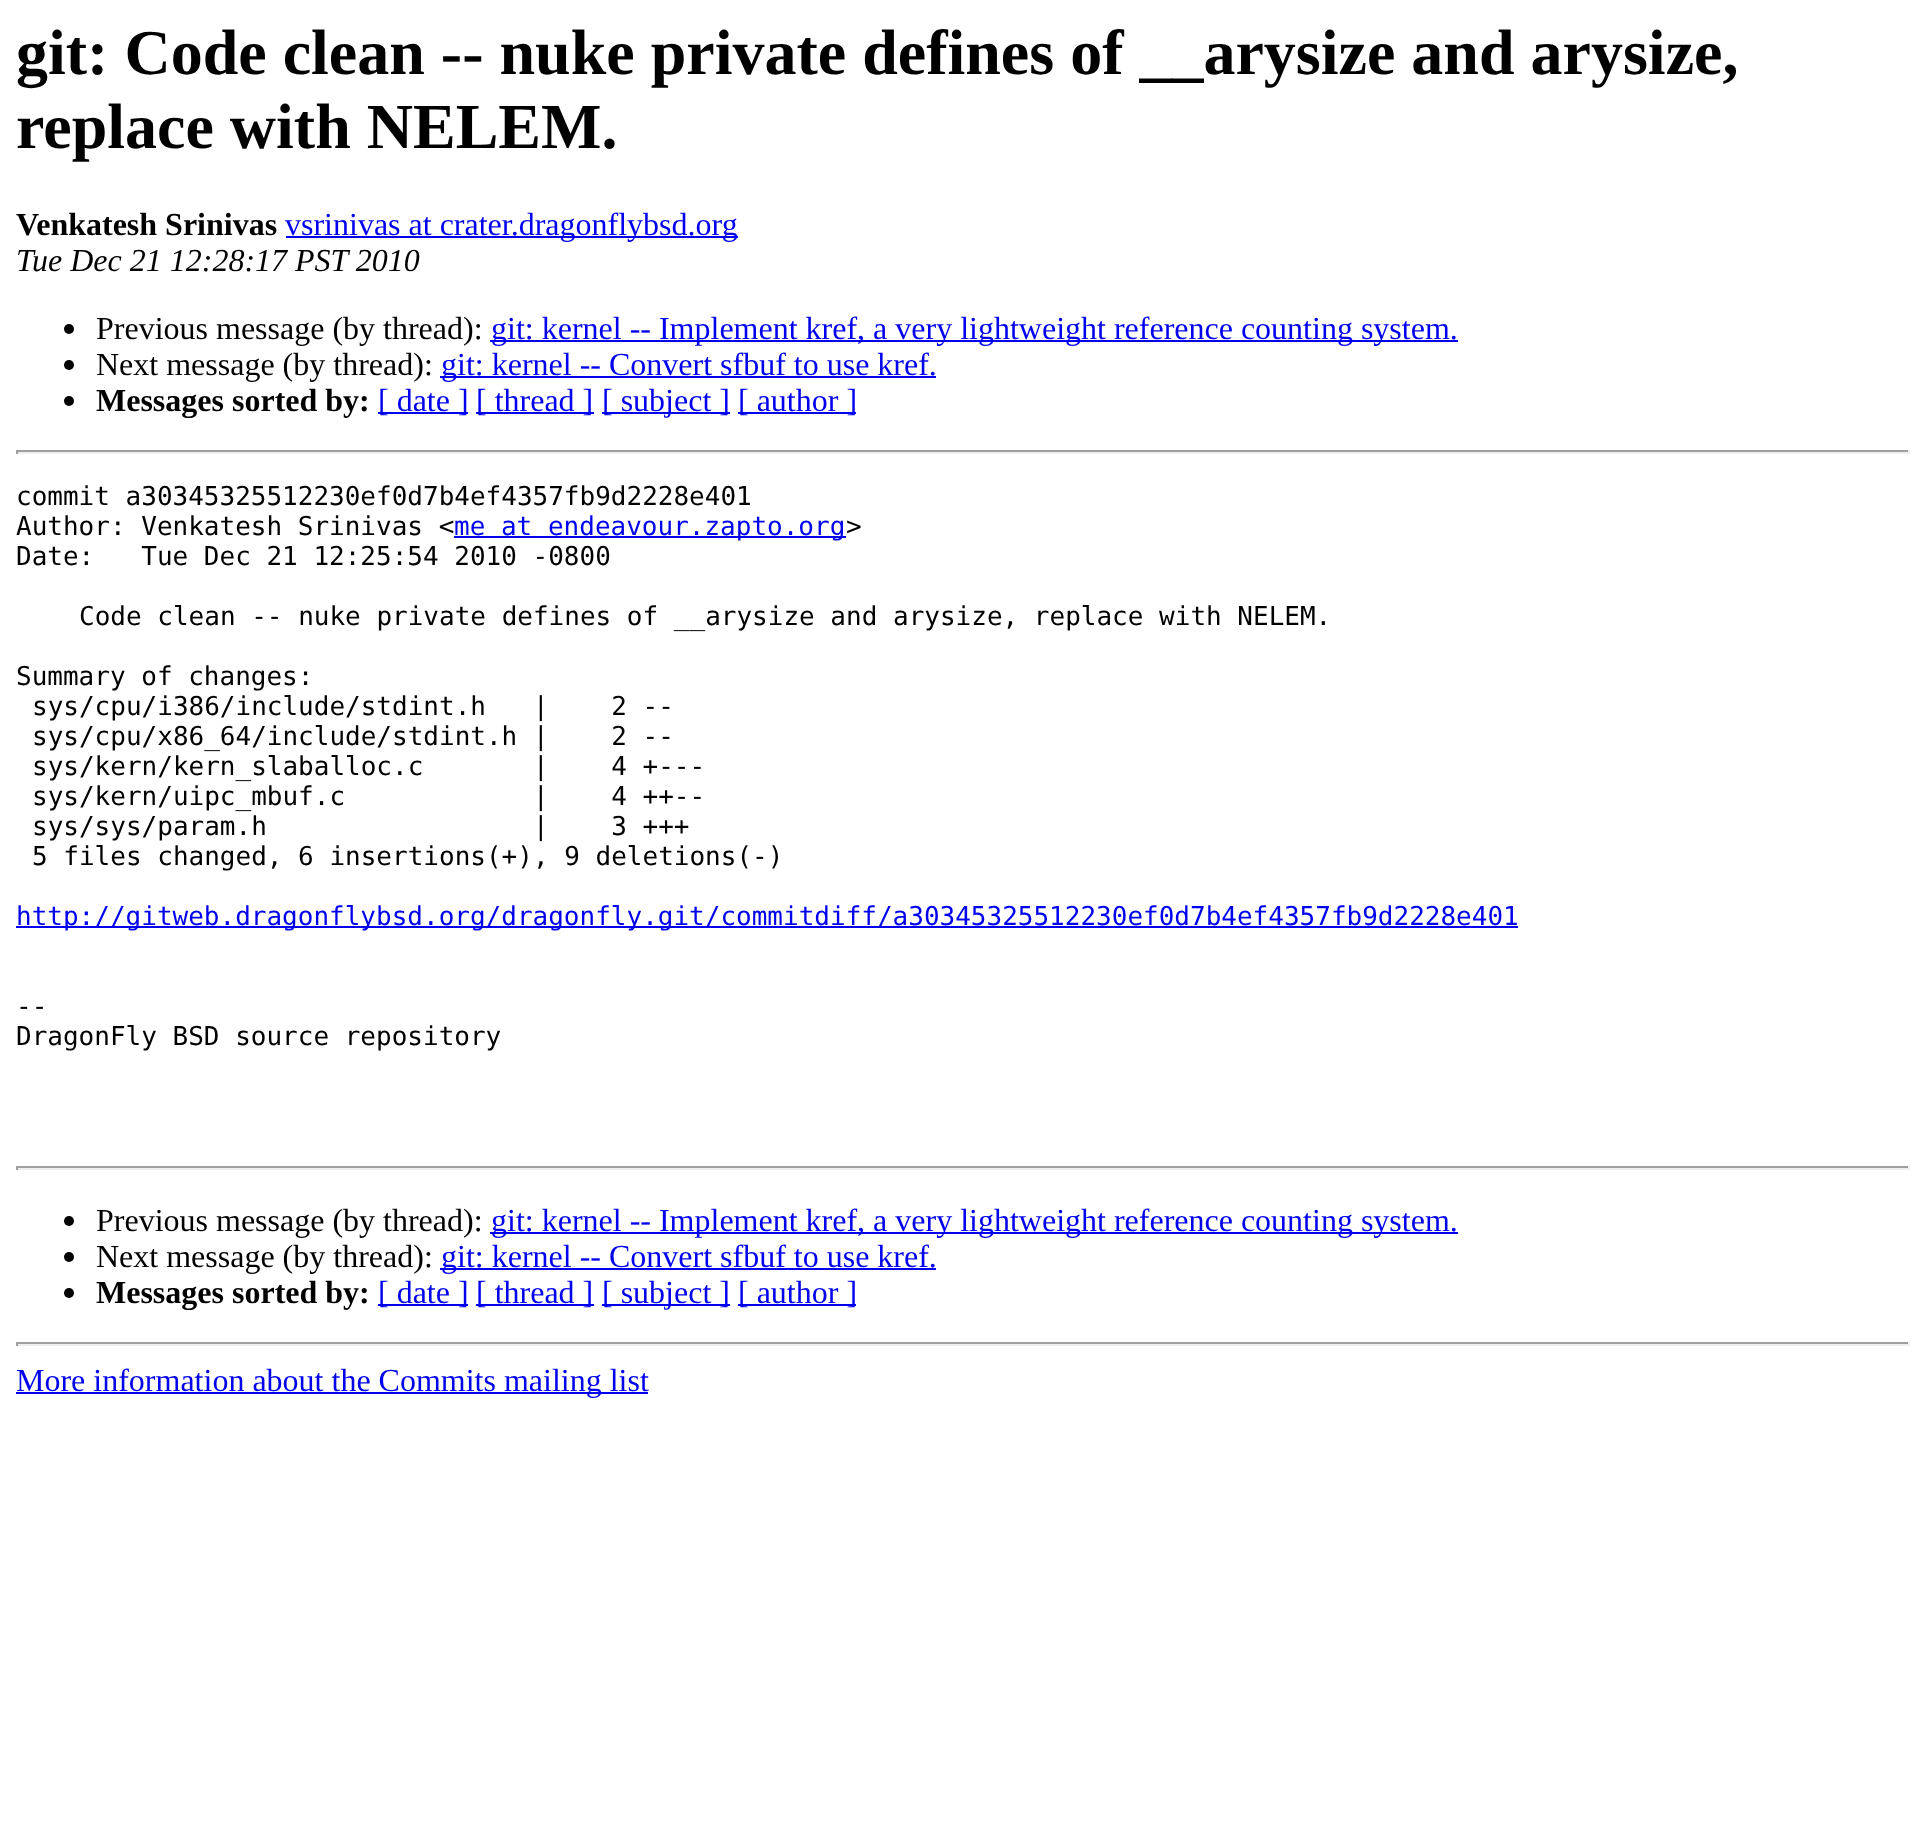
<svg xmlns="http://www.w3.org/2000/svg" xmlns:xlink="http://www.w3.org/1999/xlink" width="1925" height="1830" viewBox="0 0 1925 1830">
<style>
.cls-1{font:bold 64px Liberation Serif;fill:#000000}
.cls-2{font:bold 32px Liberation Serif;fill:#000000}
.cls-3{font:32px Liberation Serif;fill:#0000ee}
.cls-4{font:italic 32px Liberation Serif;fill:#000000}
.cls-5{font:32px Liberation Serif;fill:#000000}
.cls-6{font:26px DejaVu Sans Mono;fill:#000000}
.cls-7{font:26px DejaVu Sans Mono;fill:#0000ee}
</style>
<rect width="100%" height="100%" fill="#ffffff"/>
<rect fill="#0000ee" x="286" y="236" width="452" height="2"/>
<circle fill="#000000" cx="69" cy="329" r="5"/>
<rect fill="#0000ee" x="490" y="340" width="968" height="2"/>
<circle fill="#000000" cx="69" cy="365" r="5"/>
<rect fill="#0000ee" x="440" y="376" width="496" height="2"/>
<circle fill="#000000" cx="69" cy="401" r="5"/>
<rect fill="#0000ee" x="378" y="412" width="90" height="2"/>
<rect fill="#0000ee" x="476" y="412" width="118" height="2"/>
<rect fill="#0000ee" x="602" y="412" width="128" height="2"/>
<rect fill="#0000ee" x="738" y="412" width="118" height="2"/>
<rect fill="#9f9f9f" x="16" y="450" width="1894" height="2"/>
<rect fill="#eeeeee" x="1908" y="450" width="2" height="4"/>
<rect fill="#eeeeee" x="16" y="452" width="1894" height="2"/>
<rect fill="#9f9f9f" x="16" y="450" width="2" height="4"/>
<rect fill="#0000ee" x="454" y="536" width="392" height="2"/>
<rect fill="#0000ee" x="16" y="926" width="1502" height="2"/>
<rect fill="#9f9f9f" x="16" y="1166" width="1894" height="2"/>
<rect fill="#eeeeee" x="1908" y="1166" width="2" height="4"/>
<rect fill="#eeeeee" x="16" y="1168" width="1894" height="2"/>
<rect fill="#9f9f9f" x="16" y="1166" width="2" height="4"/>
<circle fill="#000000" cx="69" cy="1221" r="5"/>
<rect fill="#0000ee" x="490" y="1232" width="968" height="2"/>
<circle fill="#000000" cx="69" cy="1257" r="5"/>
<rect fill="#0000ee" x="440" y="1268" width="496" height="2"/>
<circle fill="#000000" cx="69" cy="1293" r="5"/>
<rect fill="#0000ee" x="378" y="1304" width="90" height="2"/>
<rect fill="#0000ee" x="476" y="1304" width="118" height="2"/>
<rect fill="#0000ee" x="602" y="1304" width="128" height="2"/>
<rect fill="#0000ee" x="738" y="1304" width="118" height="2"/>
<rect fill="#9f9f9f" x="16" y="1342" width="1894" height="2"/>
<rect fill="#eeeeee" x="1908" y="1342" width="2" height="4"/>
<rect fill="#eeeeee" x="16" y="1344" width="1894" height="2"/>
<rect fill="#9f9f9f" x="16" y="1342" width="2" height="4"/>
<rect fill="#0000ee" x="16" y="1392" width="632" height="2"/>
<text class="cls-1"><tspan x="16" y="74">git: Code clean -- nuke private defines of __arysize and arysize,</tspan><tspan x="16" y="148">replace with NELEM.</tspan></text>
<text class="cls-2" x="16" y="235">Venkatesh Srinivas</text>
<text class="cls-3" x="285" y="235">vsrinivas at crater.dragonflybsd.org</text>
<text class="cls-4" x="16" y="271">Tue Dec 21 12:28:17 PST 2010</text>
<text class="cls-5" x="96" y="339">Previous message (by thread):</text>
<text class="cls-3" x="491" y="339">git: kernel -- Implement kref, a very lightweight reference counting system.</text>
<text class="cls-5" x="96" y="375">Next message (by thread):</text>
<text class="cls-3" x="441" y="375">git: kernel -- Convert sfbuf to use kref.</text>
<text class="cls-2" x="96" y="411">Messages sorted by:</text>
<text class="cls-3" x="378" y="411">[ date ]</text>
<text class="cls-3" x="476" y="411">[ thread ]</text>
<text class="cls-3" x="602" y="411">[ subject ]</text>
<text class="cls-3" x="738" y="411">[ author ]</text>
<text class="cls-6"><tspan x="16" y="505">commit a30345325512230ef0d7b4ef4357fb9d2228e401</tspan><tspan x="16" y="535">Author: Venkatesh Srinivas &lt;</tspan></text>
<text class="cls-7" x="454" y="535">me at endeavour.zapto.org</text>
<text class="cls-6" x="846" y="535">&gt;</text>
<text class="cls-6" xml:space="preserve" x="16" y="565">Date:   Tue Dec 21 12:25:54 2010 -0800</text>
<text class="cls-6" x="79" y="625">Code clean -- nuke private defines of __arysize and arysize, replace with NELEM.</text>
<text class="cls-6" x="16" y="685">Summary of changes:</text>
<text class="cls-6" xml:space="preserve"><tspan x="32" y="715">sys/cpu/i386/include/stdint.h   |    2 --</tspan><tspan x="32" y="745">sys/cpu/x86_64/include/stdint.h |    2 --</tspan><tspan x="32" y="775">sys/kern/kern_slaballoc.c       |    4 +---</tspan><tspan x="32" y="805">sys/kern/uipc_mbuf.c            |    4 ++--</tspan><tspan x="32" y="835">sys/sys/param.h                 |    3 +++</tspan><tspan x="32" y="865">5 files changed, 6 insertions(+), 9 deletions(-)</tspan></text>
<text class="cls-7" x="16" y="925">http://gitweb.dragonflybsd.org/dragonfly.git/commitdiff/a30345325512230ef0d7b4ef4357fb9d2228e401</text>
<text class="cls-6"><tspan x="16" y="1015">--</tspan><tspan x="16" y="1045">DragonFly BSD source repository</tspan></text>
<text class="cls-5" x="96" y="1231">Previous message (by thread):</text>
<text class="cls-3" x="491" y="1231">git: kernel -- Implement kref, a very lightweight reference counting system.</text>
<text class="cls-5" x="96" y="1267">Next message (by thread):</text>
<text class="cls-3" x="441" y="1267">git: kernel -- Convert sfbuf to use kref.</text>
<text class="cls-2" x="96" y="1303">Messages sorted by:</text>
<text class="cls-3" x="378" y="1303">[ date ]</text>
<text class="cls-3" x="476" y="1303">[ thread ]</text>
<text class="cls-3" x="602" y="1303">[ subject ]</text>
<text class="cls-3" x="738" y="1303">[ author ]</text>
<text class="cls-3" x="16" y="1391">More information about the Commits mailing list</text>
</svg>
